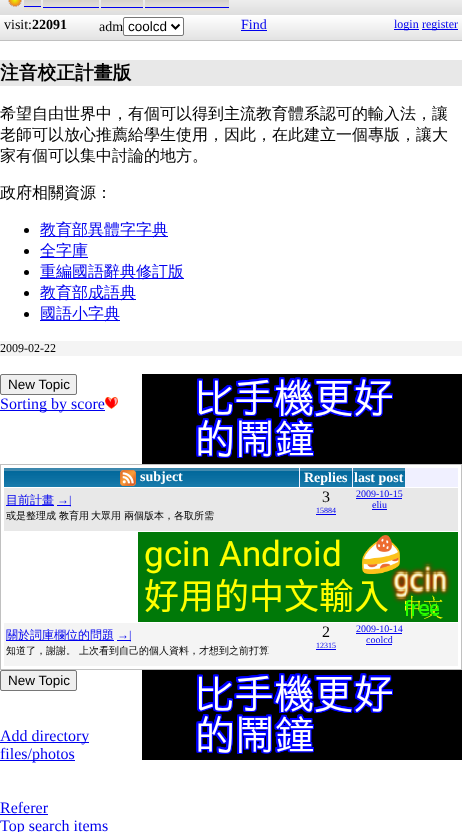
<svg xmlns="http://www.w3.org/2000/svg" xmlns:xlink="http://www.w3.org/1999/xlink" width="462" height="832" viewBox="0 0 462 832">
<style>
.cls-1{font:14px Liberation Serif;fill:#000000}
.cls-2{font:bold 14px Liberation Serif;fill:#000000}
.cls-3{font:13.5px Liberation Sans;fill:#000000}
.cls-4{font:14px Liberation Serif;fill:#0000ee}
.cls-5{font:12px Liberation Serif;fill:#0000ee}
.cls-6{font:bold 18.75px WenQuanYi Zen Hei;fill:#000000}
.cls-7{font:500 16px WenQuanYi Zen Hei;fill:#000000}
.cls-8{font:500 16px WenQuanYi Zen Hei;fill:#0000ee}
.cls-9{font:12px Liberation Serif;fill:#000000}
.cls-10{font:16px Liberation Serif;fill:#0000ee}
.cls-11{font:bold 14px Liberation Serif;fill:#ffffff}
.cls-12{font:500 12px WenQuanYi Zen Hei;fill:#0000ee}
.cls-13{font:500 10px WenQuanYi Zen Hei;fill:#000000}
.cls-14{font:16px Liberation Serif;fill:#000000}
.cls-15{font:8px Liberation Serif;fill:#0000ee}
.cls-16{font:10px Liberation Serif;fill:#0000ee}
</style>
<rect width="100%" height="100%" fill="#ffffff"/>
<image xlink:href="image0.png" x="0" y="0" width="462" height="40"/>
<rect fill="#c0c0c0" x="0" y="40" width="462" height="1"/>
<image xlink:href="image1.png" x="8" y="0" width="14" height="7"/>
<image xlink:href="image2.png" x="24" y="0" width="17" height="11"/>
<rect fill="#0000ee" x="24" y="6" width="17" height="1"/>
<image xlink:href="image3.png" x="43" y="0" width="56" height="11"/>
<rect fill="#0000ee" x="43" y="7" width="56" height="1"/>
<image xlink:href="image4.png" x="101" y="0" width="42" height="11"/>
<rect fill="#0000ee" x="101" y="7" width="42" height="1"/>
<image xlink:href="image5.png" x="145" y="0" width="84" height="11"/>
<rect fill="#0000ee" x="145" y="7" width="84" height="1"/>
<rect fill="#0000ee" x="241" y="30" width="26" height="1"/>
<rect fill="#0000ee" x="394" y="29" width="25" height="1"/>
<rect fill="#0000ee" x="422" y="29" width="36" height="1"/>
<rect fill="#e8e8e8" x="0" y="60" width="462" height="26"/>
<circle fill="#000000" cx="26.5" cy="230.5" r="2.5"/>
<rect fill="#0000ee" x="40" y="236" width="128" height="1"/>
<circle fill="#000000" cx="26.5" cy="251.5" r="2.5"/>
<rect fill="#0000ee" x="40" y="257" width="48" height="1"/>
<circle fill="#000000" cx="26.5" cy="272.5" r="2.5"/>
<rect fill="#0000ee" x="40" y="278" width="144" height="1"/>
<circle fill="#000000" cx="26.5" cy="293.5" r="2.5"/>
<rect fill="#0000ee" x="40" y="299" width="96" height="1"/>
<circle fill="#000000" cx="26.5" cy="314.5" r="2.5"/>
<rect fill="#0000ee" x="40" y="320" width="80" height="1"/>
<rect fill="#f4f4f4" x="0" y="341" width="462" height="15"/>
<rect fill="#efefef" stroke="#767676" x="0.5" y="374.5" width="76" height="20" rx="1.5"/>
<image xlink:href="image6.png" x="142" y="374" width="320" height="90"/>
<rect fill="#0000ee" x="0" y="410" width="105" height="1"/>
<image xlink:href="image7.png" x="105" y="397" width="13" height="12"/>
<rect fill="none" stroke="#c0c0c0" x="0.5" y="464.5" width="461" height="205"/>
<rect fill="#f0f0ff" x="299" y="468" width="159" height="19"/>
<image xlink:href="image8.png" x="4" y="468" width="295" height="19"/>
<image xlink:href="image9.png" x="120" y="470" width="16" height="16"/>
<image xlink:href="image10.png" x="300" y="468" width="52" height="19"/>
<image xlink:href="image10.png" x="353" y="468" width="52" height="19"/>
<rect fill="#e8e8e8" x="4" y="488" width="454" height="43"/>
<rect fill="#0000ee" x="6" y="505" width="48" height="1"/>
<rect fill="#0000ee" x="57" y="505" width="14" height="1"/>
<rect fill="#0000ee" x="316" y="514" width="20" height="1"/>
<rect fill="#0000ee" x="356" y="498" width="46" height="1"/>
<rect fill="#0000ee" x="372" y="509" width="15" height="1"/>
<image xlink:href="image11.png" x="138" y="532" width="320" height="90"/>
<rect fill="#f4f4f4" x="4" y="623" width="454" height="43"/>
<rect fill="#0000ee" x="6" y="640" width="108" height="1"/>
<rect fill="#0000ee" x="117" y="640" width="14" height="1"/>
<rect fill="#0000ee" x="316" y="649" width="20" height="1"/>
<rect fill="#0000ee" x="356" y="633" width="46" height="1"/>
<rect fill="#0000ee" x="366" y="644" width="26" height="1"/>
<rect fill="#efefef" stroke="#767676" x="0.5" y="670.5" width="76" height="20" rx="1.5"/>
<image xlink:href="image6.png" x="142" y="670" width="320" height="90"/>
<rect fill="#0000ee" x="0" y="742" width="89" height="1"/>
<rect fill="#0000ee" x="0" y="760" width="75" height="1"/>
<rect fill="#0000ee" x="0" y="814" width="48" height="1"/>
<text class="cls-1" x="4" y="29">visit:</text>
<text class="cls-2" x="32" y="29">22091</text>
<text class="cls-1" x="99" y="31">adm</text>
<rect fill="#ffffff" stroke="#767676" x="123.5" y="17.5" width="60" height="18" rx="1.5"/>
<path fill="none" stroke="#000000" stroke-width="2" d="M171.5 24.5L175.5 28.5L179.5 24.5"/>
<text class="cls-3" x="128" y="31">coolcd</text>
<text class="cls-4" x="241" y="29">Find</text>
<text class="cls-5" x="394" y="28">login</text>
<text class="cls-5" x="422" y="28">register</text>
<text class="cls-6" x="0" y="79">注音校正計畫版</text>
<text class="cls-7"><tspan x="0" y="119">希望自由世界中，有個可以得到主流教育體系認可的輸入法，讓</tspan><tspan x="0" y="140">老師可以放心推薦給學生使用，因此，在此建立一個專版，讓大</tspan><tspan x="0" y="161">家有個可以集中討論的地方。</tspan></text>
<text class="cls-7" x="0" y="198">政府相關資源：</text>
<text class="cls-8"><tspan x="40" y="235">教育部異體字字典</tspan><tspan x="40" y="256">全字庫</tspan><tspan x="40" y="277">重編國語辭典修訂版</tspan><tspan x="40" y="298">教育部成語典</tspan><tspan x="40" y="319">國語小字典</tspan></text>
<text class="cls-9" x="0" y="352">2009-02-22</text>
<text class="cls-3" x="8" y="389">New Topic</text>
<text class="cls-10" x="0" y="409">Sorting by score</text>
<text class="cls-11" x="140" y="481">subject</text>
<text class="cls-11" x="304" y="482">Replies</text>
<text class="cls-11" x="354" y="482">last post</text>
<text class="cls-12" x="6" y="504">目前計畫</text>
<text class="cls-5" x="57" y="504">→|</text>
<text class="cls-13" x="6" y="519">或是整理成</text>
<text class="cls-13" x="59" y="519">教育用</text>
<text class="cls-13" x="91" y="519">大眾用</text>
<text class="cls-13" x="124" y="519">兩個版本，各取所需</text>
<text class="cls-14" x="322" y="502">3</text>
<text class="cls-15" x="316" y="513">15884</text>
<text class="cls-16" x="356" y="497">2009-10-15</text>
<text class="cls-16" x="372" y="508">eliu</text>
<text class="cls-12" x="6" y="639">關於詞庫欄位的問題</text>
<text class="cls-5" x="117" y="639">→|</text>
<text class="cls-13" x="6" y="654">知道了，謝謝。</text>
<text class="cls-13" x="79" y="654">上次看到自己的個人資料，才想到之前打算</text>
<text class="cls-14" x="322" y="637">2</text>
<text class="cls-15" x="316" y="648">12315</text>
<text class="cls-16" x="356" y="632">2009-10-14</text>
<text class="cls-16" x="366" y="643">coolcd</text>
<text class="cls-3" x="8" y="685">New Topic</text>
<text class="cls-10"><tspan x="0" y="741">Add directory</tspan><tspan x="0" y="759">files/photos</tspan></text>
<text class="cls-10"><tspan x="0" y="813">Referer</tspan><tspan x="0" y="831">Top search items</tspan></text>
</svg>
